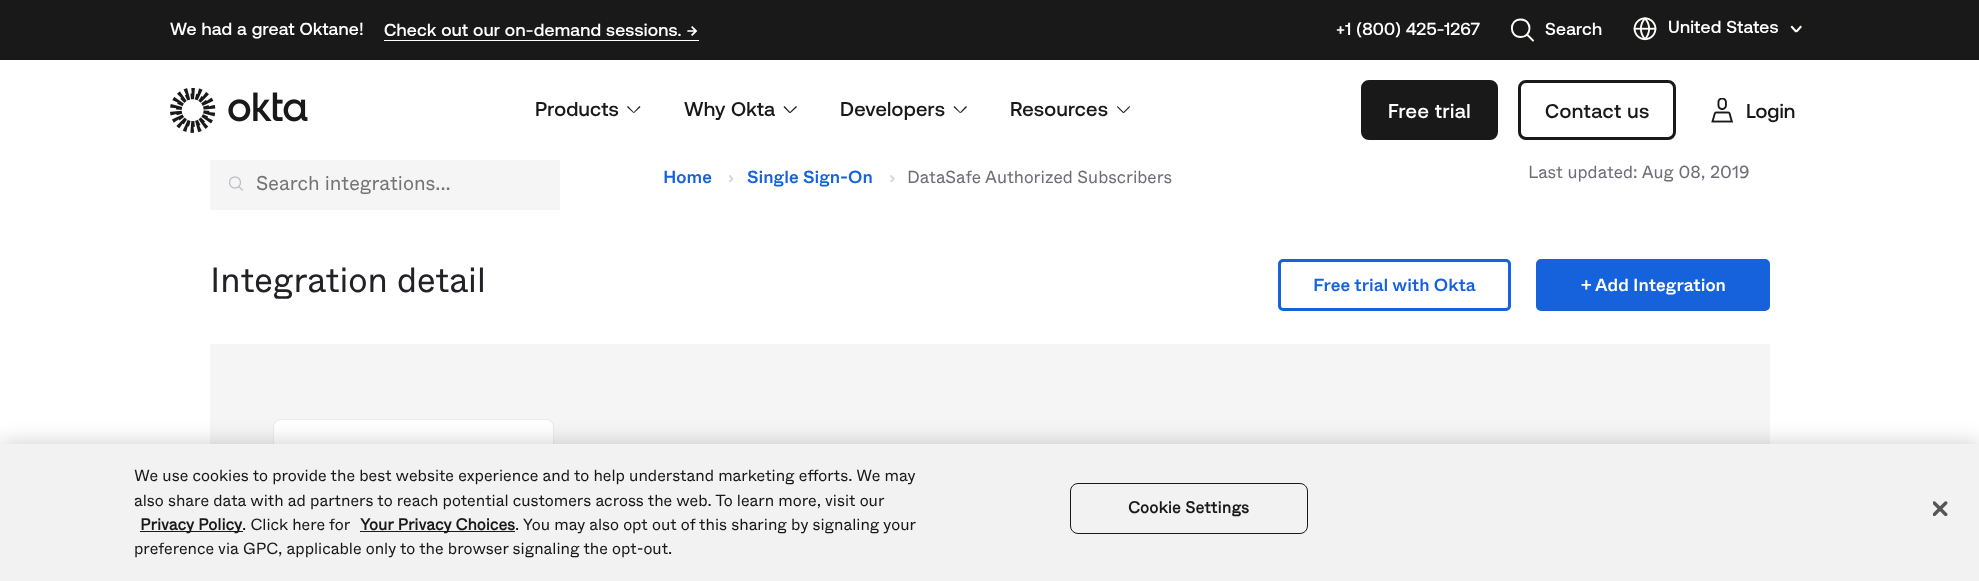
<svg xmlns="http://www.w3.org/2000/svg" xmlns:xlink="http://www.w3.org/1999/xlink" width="1979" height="581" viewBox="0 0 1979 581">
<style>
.cls-1{font:500 17.5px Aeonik;letter-spacing:0.25px;fill:#ffffff}
.cls-2{font:500 20px Aeonik;letter-spacing:0.25px;fill:#191919}
.cls-3{font:500 20px Aeonik;letter-spacing:0.5px;fill:#ffffff}
.cls-4{font:500 20px Aeonik;letter-spacing:0.5px;fill:#191919}
.cls-5{font:500 20px Aeonik;fill:#191919}
.cls-6{font:300 20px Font;fill:#757575}
.cls-7{font:500 17.5px Font;fill:#1662dd}
.cls-8{font:300 17.5px Font;fill:#6e6e78}
.cls-9{font:300 35px Font;fill:#212126}
.cls-10{font:500 17.5px Font;fill:#ffffff}
.cls-11{font:300 16.25px Font;fill:#191919}
.cls-12{font:bold 16.25px Font;fill:#191919}
.cls-13{font:bold 16.25px Font;letter-spacing:0.2px;fill:#191919}
</style>
<defs>
<clipPath id="clip1"><rect x="229" y="176" width="15" height="15"/></clipPath>
</defs>
<rect width="100%" height="100%" fill="#ffffff"/>
<rect fill="#191919" x="0" y="0" width="1979" height="60"/>
<rect fill="#fffefa" x="384" y="40" width="315" height="1"/>
<path fill="none" stroke="#fffefa" stroke-width="1.9" stroke-linecap="round" stroke-linejoin="round" d="M1520.5 37C1532.5 37 1532.5 19.5 1520.5 19.5C1509 19.5 1509 37 1520.5 37ZM1533 40.5L1527 34.5"/>
<image xlink:href="image0.png" x="1633" y="17" width="24" height="24"/>
<path fill="#fffefa" d="M1792 25.5L1797 31L1795.5 32.5L1790.5 27Z"/>
<path fill="#fffefa" d="M1795.5 31L1800.5 25.5L1802 27L1797 32.5Z"/>
<image xlink:href="image1.png" x="170" y="88" width="138" height="45"/>
<path fill="#191919" d="M633.5 112.5L639.5 106L640.5 107L634 113Z"/>
<path fill="#191919" d="M628 106L634 112.5L633.5 113L627 107Z"/>
<path fill="#191919" d="M789.5 112.5L796 106L797 107L790.5 113Z"/>
<path fill="#191919" d="M784.5 106L790.5 112.5L789.5 113L783.5 107Z"/>
<path fill="#191919" d="M960 112.5L966 106L967 107L961 113Z"/>
<path fill="#191919" d="M954.5 106L960.5 112.5L960 113L953.5 107Z"/>
<path fill="#191919" d="M1123 112.5L1129.5 106L1130 107L1124 113Z"/>
<path fill="#191919" d="M1117.5 106L1124 112.5L1123 113L1117 107Z"/>
<rect fill="#191919" stroke="#191919" stroke-width="3" x="1362.5" y="81.5" width="134" height="57" rx="6.5"/>
<rect fill="none" stroke="#191919" stroke-width="3" x="1519.5" y="81.5" width="155" height="57" rx="6.5"/>
<image xlink:href="image2.png" x="1711" y="98" width="23" height="25"/>
<rect fill="#f5f5f6" x="210" y="160" width="350" height="50"/>
<g clip-path="url(#clip1)">
<circle fill="none" stroke="#c1c1c8" stroke-width="1.4" cx="235" cy="182.5" r="5.5"/>
</g>
<path fill="none" stroke="#c1c1c8" stroke-width="1.4" d="M238.5 186.5L243 190.5"/>
<image xlink:href="image3.png" x="729" y="175" width="5" height="8"/>
<image xlink:href="image4.png" x="890" y="175" width="5" height="8"/>
<rect fill="none" stroke="#1662dd" stroke-width="3" x="1279.5" y="260.5" width="230" height="49" rx="3.5"/>
<rect fill="#1662dd" stroke="#1662dd" stroke-width="3" x="1537.5" y="260.5" width="231" height="49" rx="3.5"/>
<rect fill="#f5f5f6" x="210" y="344" width="1560" height="100"/>
<rect fill="#ffffff" stroke="#ebebed" x="273.5" y="419.5" width="280" height="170" rx="7.5"/>
<rect fill="#000000" fill-opacity="0.2" filter="blur(11px)" x="0" y="444" width="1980" height="137"/>
<rect fill="#f2f2f2" x="0" y="444" width="1979" height="137"/>
<rect fill="#191919" x="140" y="531" width="103" height="1"/>
<rect fill="#191919" x="360" y="531" width="155" height="1"/>
<rect fill="none" stroke="#191919" x="1070.5" y="483.5" width="237" height="50" rx="7.5"/>
<image xlink:href="image5.png" x="1933" y="501" width="15" height="15"/>
<text class="cls-1" x="170" y="35">We had a great Oktane!</text>
<text class="cls-1" x="384" y="36">Check out our on-demand sessions. →</text>
<text class="cls-1" x="1336" y="35">+1 (800) 425-1267</text>
<text class="cls-1" x="1545" y="35">Search</text>
<text class="cls-1" x="1668" y="33">United States</text>
<text class="cls-2" x="535" y="116">Products</text>
<text class="cls-2" x="684" y="116">Why Okta</text>
<text class="cls-2" x="840" y="116">Developers</text>
<text class="cls-2" x="1010" y="116">Resources</text>
<text class="cls-3" x="1388" y="118">Free trial</text>
<text class="cls-4" x="1545" y="118">Contact us</text>
<text class="cls-5" x="1746" y="118">Login</text>
<text class="cls-6" x="256" y="190">Search integrations...</text>
<text class="cls-7" x="663" y="183">Home</text>
<text class="cls-7" x="747" y="183">Single Sign-On</text>
<text class="cls-8" x="907" y="183">DataSafe Authorized Subscribers</text>
<text class="cls-8" x="1528" y="178">Last updated: Aug 08, 2019</text>
<text class="cls-9" x="210" y="292">Integration detail</text>
<text class="cls-7" x="1313" y="291">Free trial with Okta</text>
<text class="cls-10" x="1581" y="291">+</text>
<text class="cls-10" x="1595" y="291">Add Integration</text>
<text class="cls-11"><tspan x="134" y="481">We use cookies to provide the best website experience and to help understand marketing efforts. We may</tspan><tspan x="134" y="506">also share data with ad partners to reach potential customers across the web. To learn more, visit our</tspan></text>
<text class="cls-12" x="140" y="530">Privacy Policy</text>
<text class="cls-11" x="242" y="530">. Click here for</text>
<text class="cls-12" x="360" y="530">Your Privacy Choices</text>
<text class="cls-11" x="515" y="530">. You may also opt out of this sharing by signaling your</text>
<text class="cls-11" x="134" y="554">preference via GPC, applicable only to the browser signaling the opt-out.</text>
<text class="cls-13" x="1128" y="513">Cookie Settings</text>
</svg>
